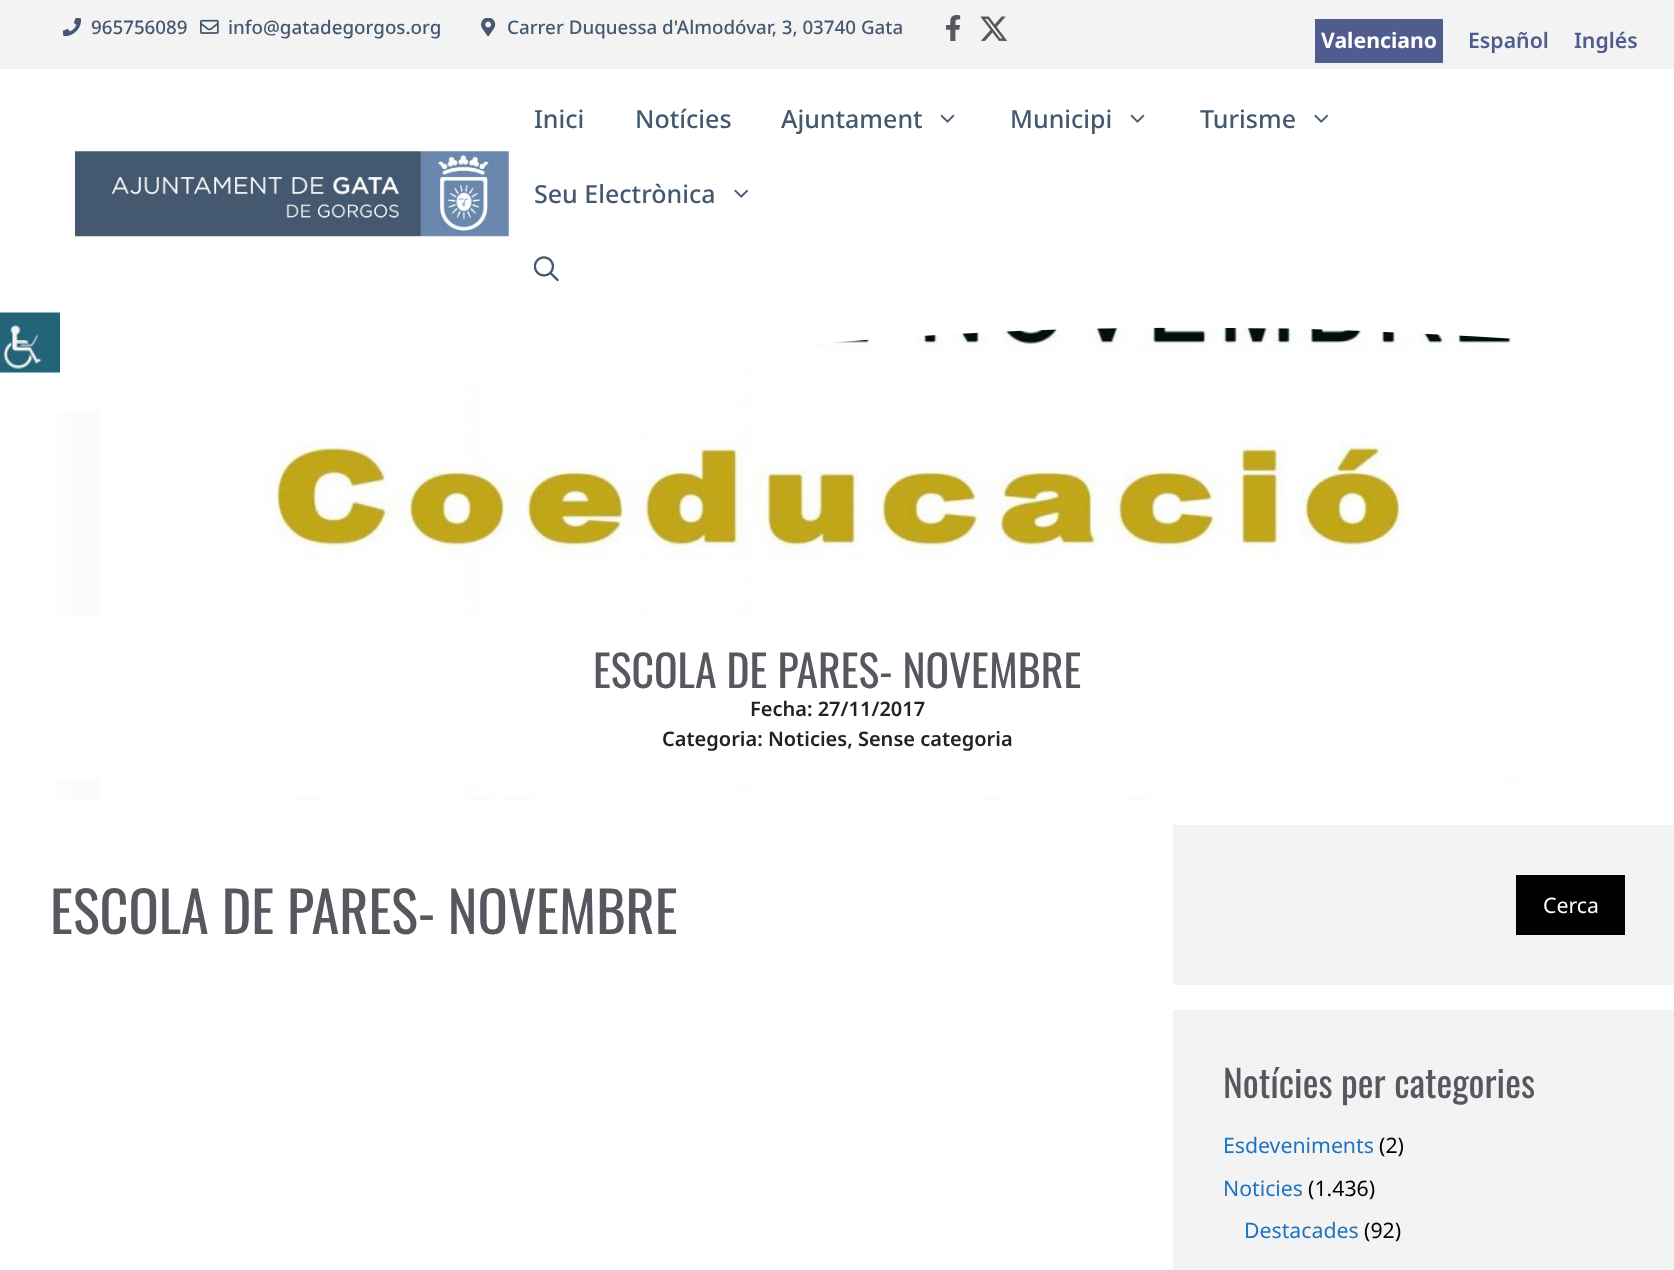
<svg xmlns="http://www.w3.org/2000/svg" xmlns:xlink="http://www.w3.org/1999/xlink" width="1674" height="1270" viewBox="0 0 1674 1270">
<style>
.cls-1{font:500 18.75px Noto Sans;fill:#445870}
.cls-2{font:bold 21.25px Noto Sans;fill:#ffffff}
.cls-3{font:600 21.25px Noto Sans;fill:#4f5c8d}
.cls-4{font:500 25px Noto Sans;fill:#445870}
.cls-5{font:43.75px Oswald;fill:#575760}
.cls-6{font:600 20px Noto Sans;fill:#222222}
.cls-7{font:56.25px Oswald;fill:#575760}
.cls-8{font:21.25px Noto Sans;fill:#ffffff}
.cls-9{font:37.5px Oswald;fill:#575760}
.cls-10{font:21.25px Noto Sans;fill:#1e73be}
.cls-11{font:21.25px Noto Sans;fill:#000000}
</style>
<defs>
<linearGradient id="g1" gradientUnits="userSpaceOnUse" x1="0" y1="559" x2="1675" y2="559"><stop offset="0" stop-color="#ffffff"/><stop offset="1" stop-color="#b3b3b3"/></linearGradient>
</defs>
<rect width="100%" height="100%" fill="#ffffff"/>
<rect fill="#f3f3f3" x="0" y="0" width="1674" height="69"/>
<image xlink:href="image0.png" x="63" y="18" width="18" height="18"/>
<image xlink:href="image1.png" x="200" y="19" width="19" height="15"/>
<image xlink:href="image2.png" x="481" y="18" width="15" height="18"/>
<image xlink:href="image3.png" x="946" y="15" width="15" height="26"/>
<image xlink:href="image4.png" x="980" y="16" width="28" height="25"/>
<rect fill="#4f5c8d" x="1315" y="19" width="128" height="44"/>
<image xlink:href="image5.png" x="75" y="151" width="434" height="86"/>
<image xlink:href="image6.png" x="940" y="114" width="15" height="9"/>
<image xlink:href="image6.png" x="1130" y="114" width="15" height="9"/>
<image xlink:href="image7.png" x="1314" y="114" width="15" height="9"/>
<image xlink:href="image7.png" x="734" y="189" width="15" height="9"/>
<image xlink:href="image8.png" x="534" y="256" width="25" height="25"/>
<rect fill="url(#g1)" x="55" y="410" width="44" height="390"/>
<image xlink:href="image10.png" x="99" y="327" width="1575" height="473"/>
<path fill="#ffffff" d="M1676 349C1554 341 1431 333 1309 329C1204 327 1099 327 995 332C907 336 820 343 733 352L418 385C279 399 139 408-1 418V318H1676Z"/>
<image xlink:href="image9.png" x="0" y="312" width="60" height="61"/>
<rect fill="#ffffff" x="55" y="616" width="1474" height="163"/>
<rect fill="#f3f3f3" x="1173" y="825" width="501" height="160"/>
<rect fill="#000000" x="1516" y="875" width="109" height="60"/>
<rect fill="#f3f3f3" x="1173" y="1010" width="501" height="260"/>
<text class="cls-1" x="91" y="34">965756089</text>
<text class="cls-1" x="228" y="34">info@gatadegorgos.org</text>
<text class="cls-1" x="507" y="34">Carrer Duquessa d'Almodóvar, 3, 03740 Gata</text>
<text class="cls-2" x="1321" y="48">Valenciano</text>
<text class="cls-3" x="1468" y="48">Español</text>
<text class="cls-3" x="1574" y="48">Inglés</text>
<text class="cls-4" x="534" y="128">Inici</text>
<text class="cls-4" x="635" y="128">Notícies</text>
<text class="cls-4" x="781" y="128">Ajuntament</text>
<text class="cls-4" x="1010" y="128">Municipi</text>
<text class="cls-4" x="1200" y="128">Turisme</text>
<text class="cls-4" x="534" y="203">Seu Electrònica</text>
<text class="cls-5" x="593" y="688">ESCOLA DE PARES- NOVEMBRE</text>
<text class="cls-6" x="750" y="716">Fecha: 27/11/2017</text>
<text class="cls-6" x="662" y="746">Categoria: Noticies, Sense categoria</text>
<text class="cls-7" x="50" y="934">ESCOLA DE PARES- NOVEMBRE</text>
<text class="cls-8" x="1543" y="913">Cerca</text>
<text class="cls-9" x="1223" y="1098">Notícies per categories</text>
<text class="cls-10" x="1223" y="1153">Esdeveniments</text>
<text class="cls-11" x="1379" y="1153">(2)</text>
<text class="cls-10" x="1223" y="1196">Noticies</text>
<text class="cls-11" x="1308" y="1196">(1.436)</text>
<text class="cls-10" x="1244" y="1238">Destacades</text>
<text class="cls-11" x="1364" y="1238">(92)</text>
</svg>
